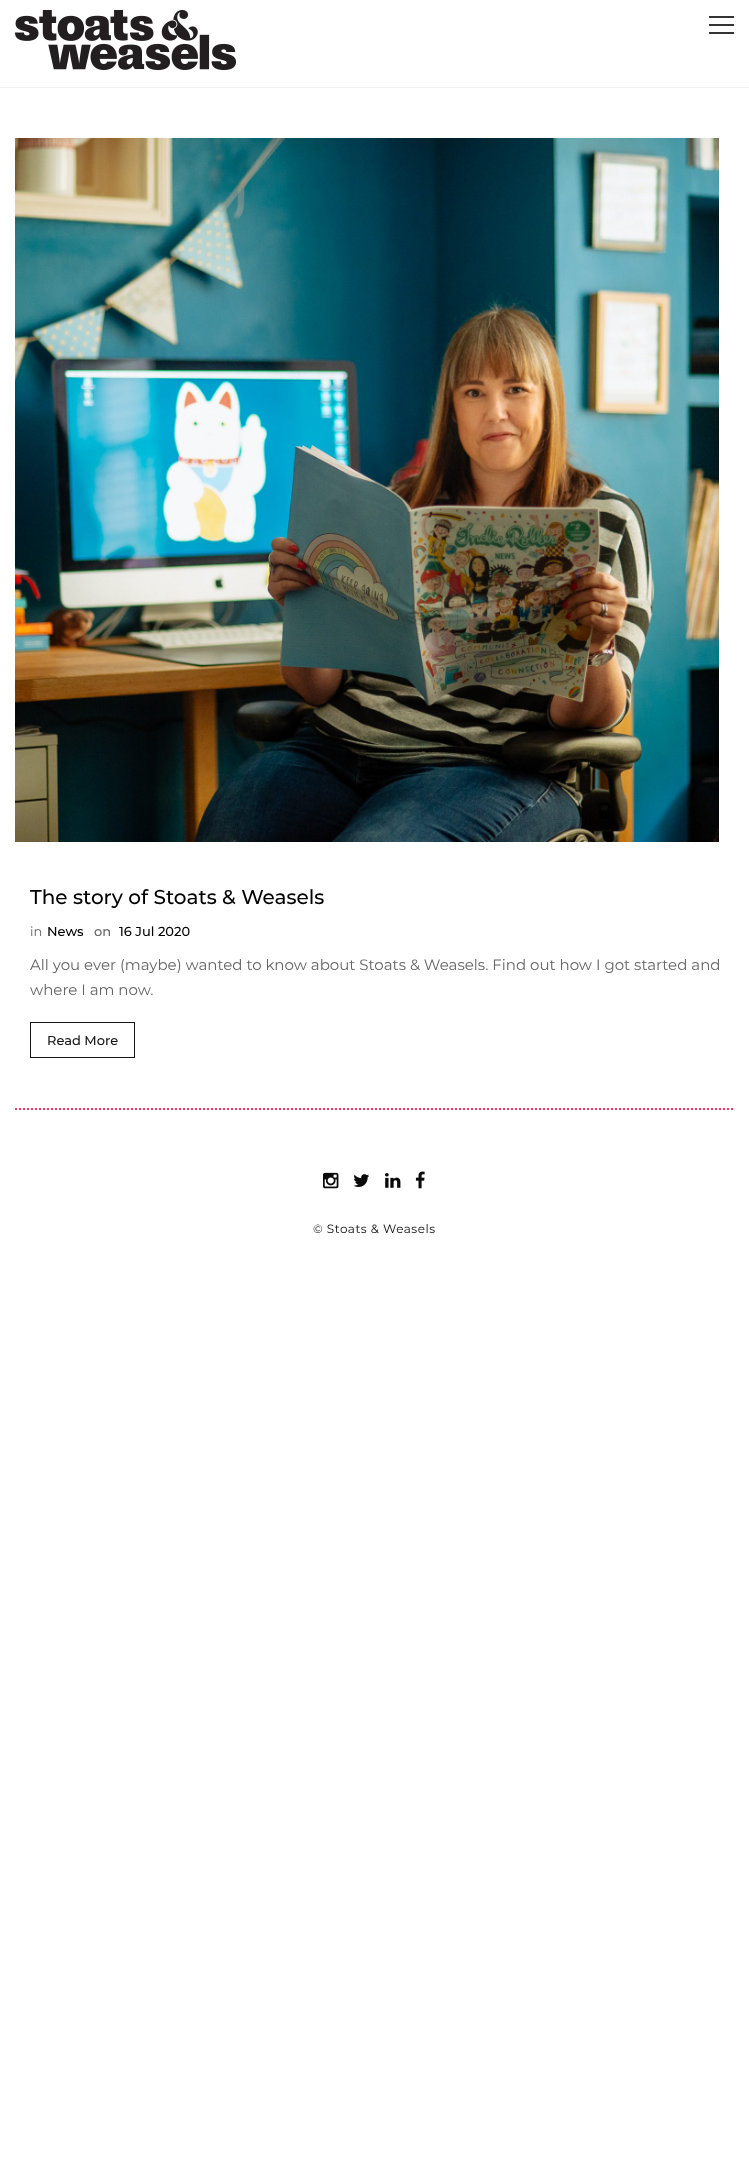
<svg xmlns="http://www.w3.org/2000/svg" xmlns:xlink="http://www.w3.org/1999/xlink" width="749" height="2179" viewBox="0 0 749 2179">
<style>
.cls-1{font:500 20px Montserrat;fill:#000000}
.cls-2{font:13px Montserrat;fill:#656565}
.cls-3{font:500 13px Montserrat;fill:#000000}
.cls-4{font:500 13px Montserrat;fill:#656565}
.cls-5{font:15px Montserrat;fill:#656565}
.cls-6{font:500 13px Montserrat;fill:#151515}
.cls-7{font:12px Montserrat;letter-spacing:0.5px;fill:#0a0a0a}
</style>
<rect width="100%" height="100%" fill="#ffffff"/>
<rect fill="#f1f1f1" x="0" y="87" width="749" height="1"/>
<image xlink:href="image0.png" x="15" y="10" width="221" height="60"/>
<rect fill="#333333" x="709" y="24" width="25" height="2"/>
<rect fill="#333333" x="709" y="16" width="25" height="2"/>
<rect fill="#333333" x="709" y="32" width="25" height="2"/>
<path fill="none" stroke="#ef3768" stroke-width="2" stroke-dasharray="2 2" d="M15 1109H734"/>
<image xlink:href="image1.png" x="15" y="138" width="704" height="704"/>
<rect fill="none" stroke="#151515" x="30.5" y="1022.5" width="104" height="35"/>
<image xlink:href="image2.png" x="323" y="1172" width="16" height="17"/>
<image xlink:href="image3.png" x="353" y="1174" width="17" height="13"/>
<image xlink:href="image4.png" x="385" y="1173" width="16" height="15"/>
<image xlink:href="image5.png" x="415" y="1171" width="10" height="18"/>
<text class="cls-1" x="30" y="904">The story of Stoats &amp; Weasels</text>
<text class="cls-2" x="30" y="936">in</text>
<text class="cls-3" x="47" y="936">News</text>
<text class="cls-4" x="94" y="936">on</text>
<text class="cls-3" x="119" y="936">16 Jul 2020</text>
<text class="cls-5"><tspan x="30" y="970">All you ever (maybe) wanted to know about Stoats &amp; Weasels. Find out how I got started and</tspan><tspan x="30" y="995">where I am now.</tspan></text>
<text class="cls-6" x="47" y="1045">Read More</text>
<text class="cls-7" x="313" y="1233">© Stoats &amp; Weasels</text>
</svg>
